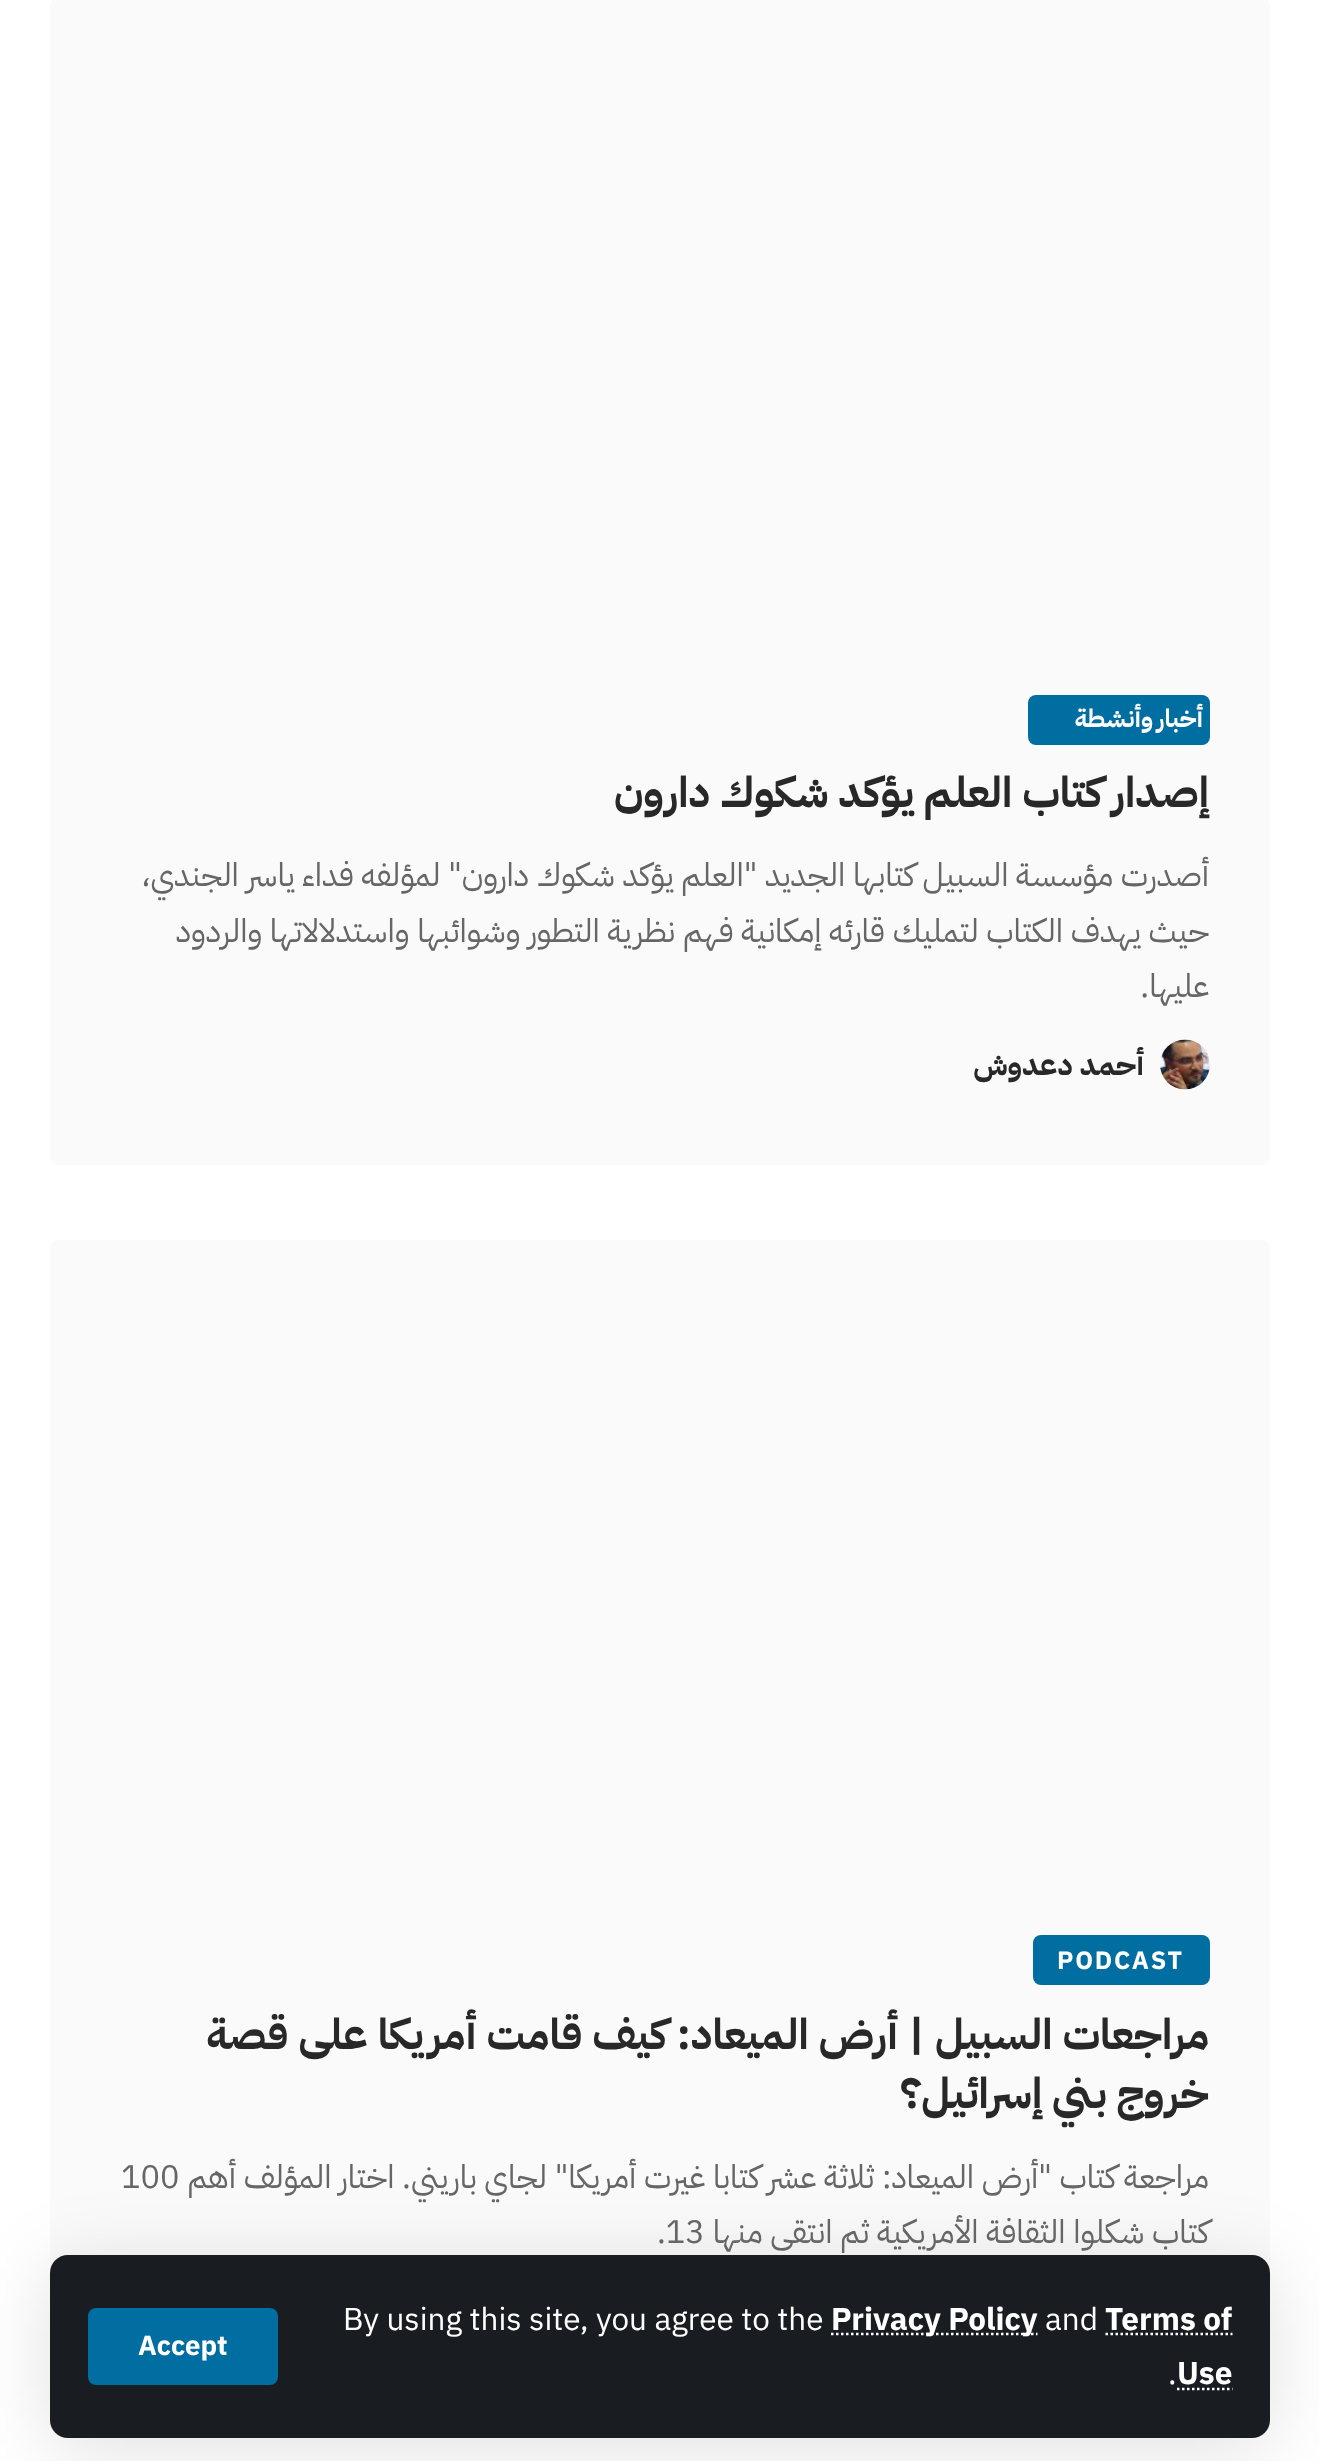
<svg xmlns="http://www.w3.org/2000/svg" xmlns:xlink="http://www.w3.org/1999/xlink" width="1319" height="2461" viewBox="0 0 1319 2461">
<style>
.cls-1{font:bold 25px IBM Plex Sans Arabic;letter-spacing:1.75px;direction:rtl;fill:#ffffff}
.cls-2{font:bold 42.5px IBM Plex Sans Arabic;direction:rtl;fill:#282828}
.cls-3{font:32.5px IBM Plex Sans Arabic;direction:rtl;fill:#666666}
.cls-4{font:bold 30px IBM Plex Sans Arabic;direction:rtl;fill:#282828}
.cls-5{font:bold 25px IBM Plex Sans Arabic;letter-spacing:1.75px;fill:#ffffff}
.cls-6{font:32.5px IBM Plex Sans Arabic;fill:#666666}
.cls-7{font:bold 31.5px IBM Plex Sans Arabic;fill:#ffffff}
.cls-8{font:31.5px IBM Plex Sans Arabic;fill:#ffffff}
.cls-9{font:bold 27.5px IBM Plex Sans Arabic;fill:#ffffff}
</style>
<rect width="100%" height="100%" fill="#ffffff"/>
<rect fill="#fafafa" x="50" y="-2" width="1220" height="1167" rx="8"/>
<rect fill="#006ea1" x="1028" y="695" width="182" height="50" rx="8"/>
<image xlink:href="image0.png" x="1160" y="1039" width="50" height="51"/>
<rect fill="#fafafa" x="50" y="1240" width="1220" height="1170" rx="8"/>
<rect fill="#006ea1" x="1033" y="1935" width="177" height="50" rx="8"/>
<rect fill="#000000" fill-opacity="0.12" filter="blur(37.5px)" x="50" y="2265" width="1220" height="183" rx="18"/>
<rect fill="#191c20" x="50" y="2255" width="1220" height="183" rx="18"/>
<path fill="none" stroke="#ffffff" stroke-width="2.5" stroke-dasharray="2.5 2.5" d="M1105.5 2334H1232.5"/>
<path fill="none" stroke="#ffffff" stroke-width="2.5" stroke-dasharray="2.5 2.5" d="M831 2334H1037.5"/>
<path fill="none" stroke="#ffffff" stroke-width="2.5" stroke-dasharray="2.5 2.5" d="M1177 2389H1232.5"/>
<rect fill="#006ea1" x="88" y="2308" width="190" height="77" rx="8"/>
<text class="cls-1" x="1203" y="727" word-spacing="-2">أخبار وأنشطة</text>
<text class="cls-2" x="1209" y="807">إصدار كتاب العلم يؤكد شكوك دارون</text>
<text class="cls-3"><tspan x="1209" y="886">أصدرت مؤسسة السبيل كتابها الجديد "العلم يؤكد شكوك دارون" لمؤلفه فداء ياسر الجندي،</tspan><tspan x="1209" y="942">حيث يهدف الكتاب لتمليك قارئه إمكانية فهم نظرية التطور وشوائبها واستدلالاتها والردود</tspan><tspan x="1209" y="997">عليها.</tspan></text>
<text class="cls-4" x="1144" y="1075">أحمد دعدوش</text>
<text class="cls-5" x="1057" y="1969">PODCAST</text>
<text class="cls-2"><tspan x="1209" y="2049">مراجعات السبيل | أرض الميعاد: كيف قامت أمريكا على قصة</tspan><tspan x="1209" y="2108">خروج بني إسرائيل؟</tspan></text>
<text class="cls-3" x="1209" y="2188">مراجعة كتاب "أرض الميعاد: ثلاثة عشر كتابا غيرت أمريكا" لجاي باريني. اختار المؤلف أهم</text>
<text class="cls-6" x="121" y="2188">100</text>
<text class="cls-3" x="1209" y="2243">كتاب شكلوا الثقافة الأمريكية ثم انتقى منها</text>
<text class="cls-6" x="657" y="2243">.13</text>
<text class="cls-7" x="1105" y="2330">Terms of</text>
<text class="cls-8" x="1045" y="2330">and</text>
<text class="cls-7" x="831" y="2330">Privacy Policy</text>
<text class="cls-8" x="343" y="2330">By using this site, you agree to the</text>
<text class="cls-7" x="1177" y="2384">Use</text>
<text class="cls-8" x="1168" y="2384">.</text>
<text class="cls-9" x="138" y="2355">Accept</text>
</svg>
